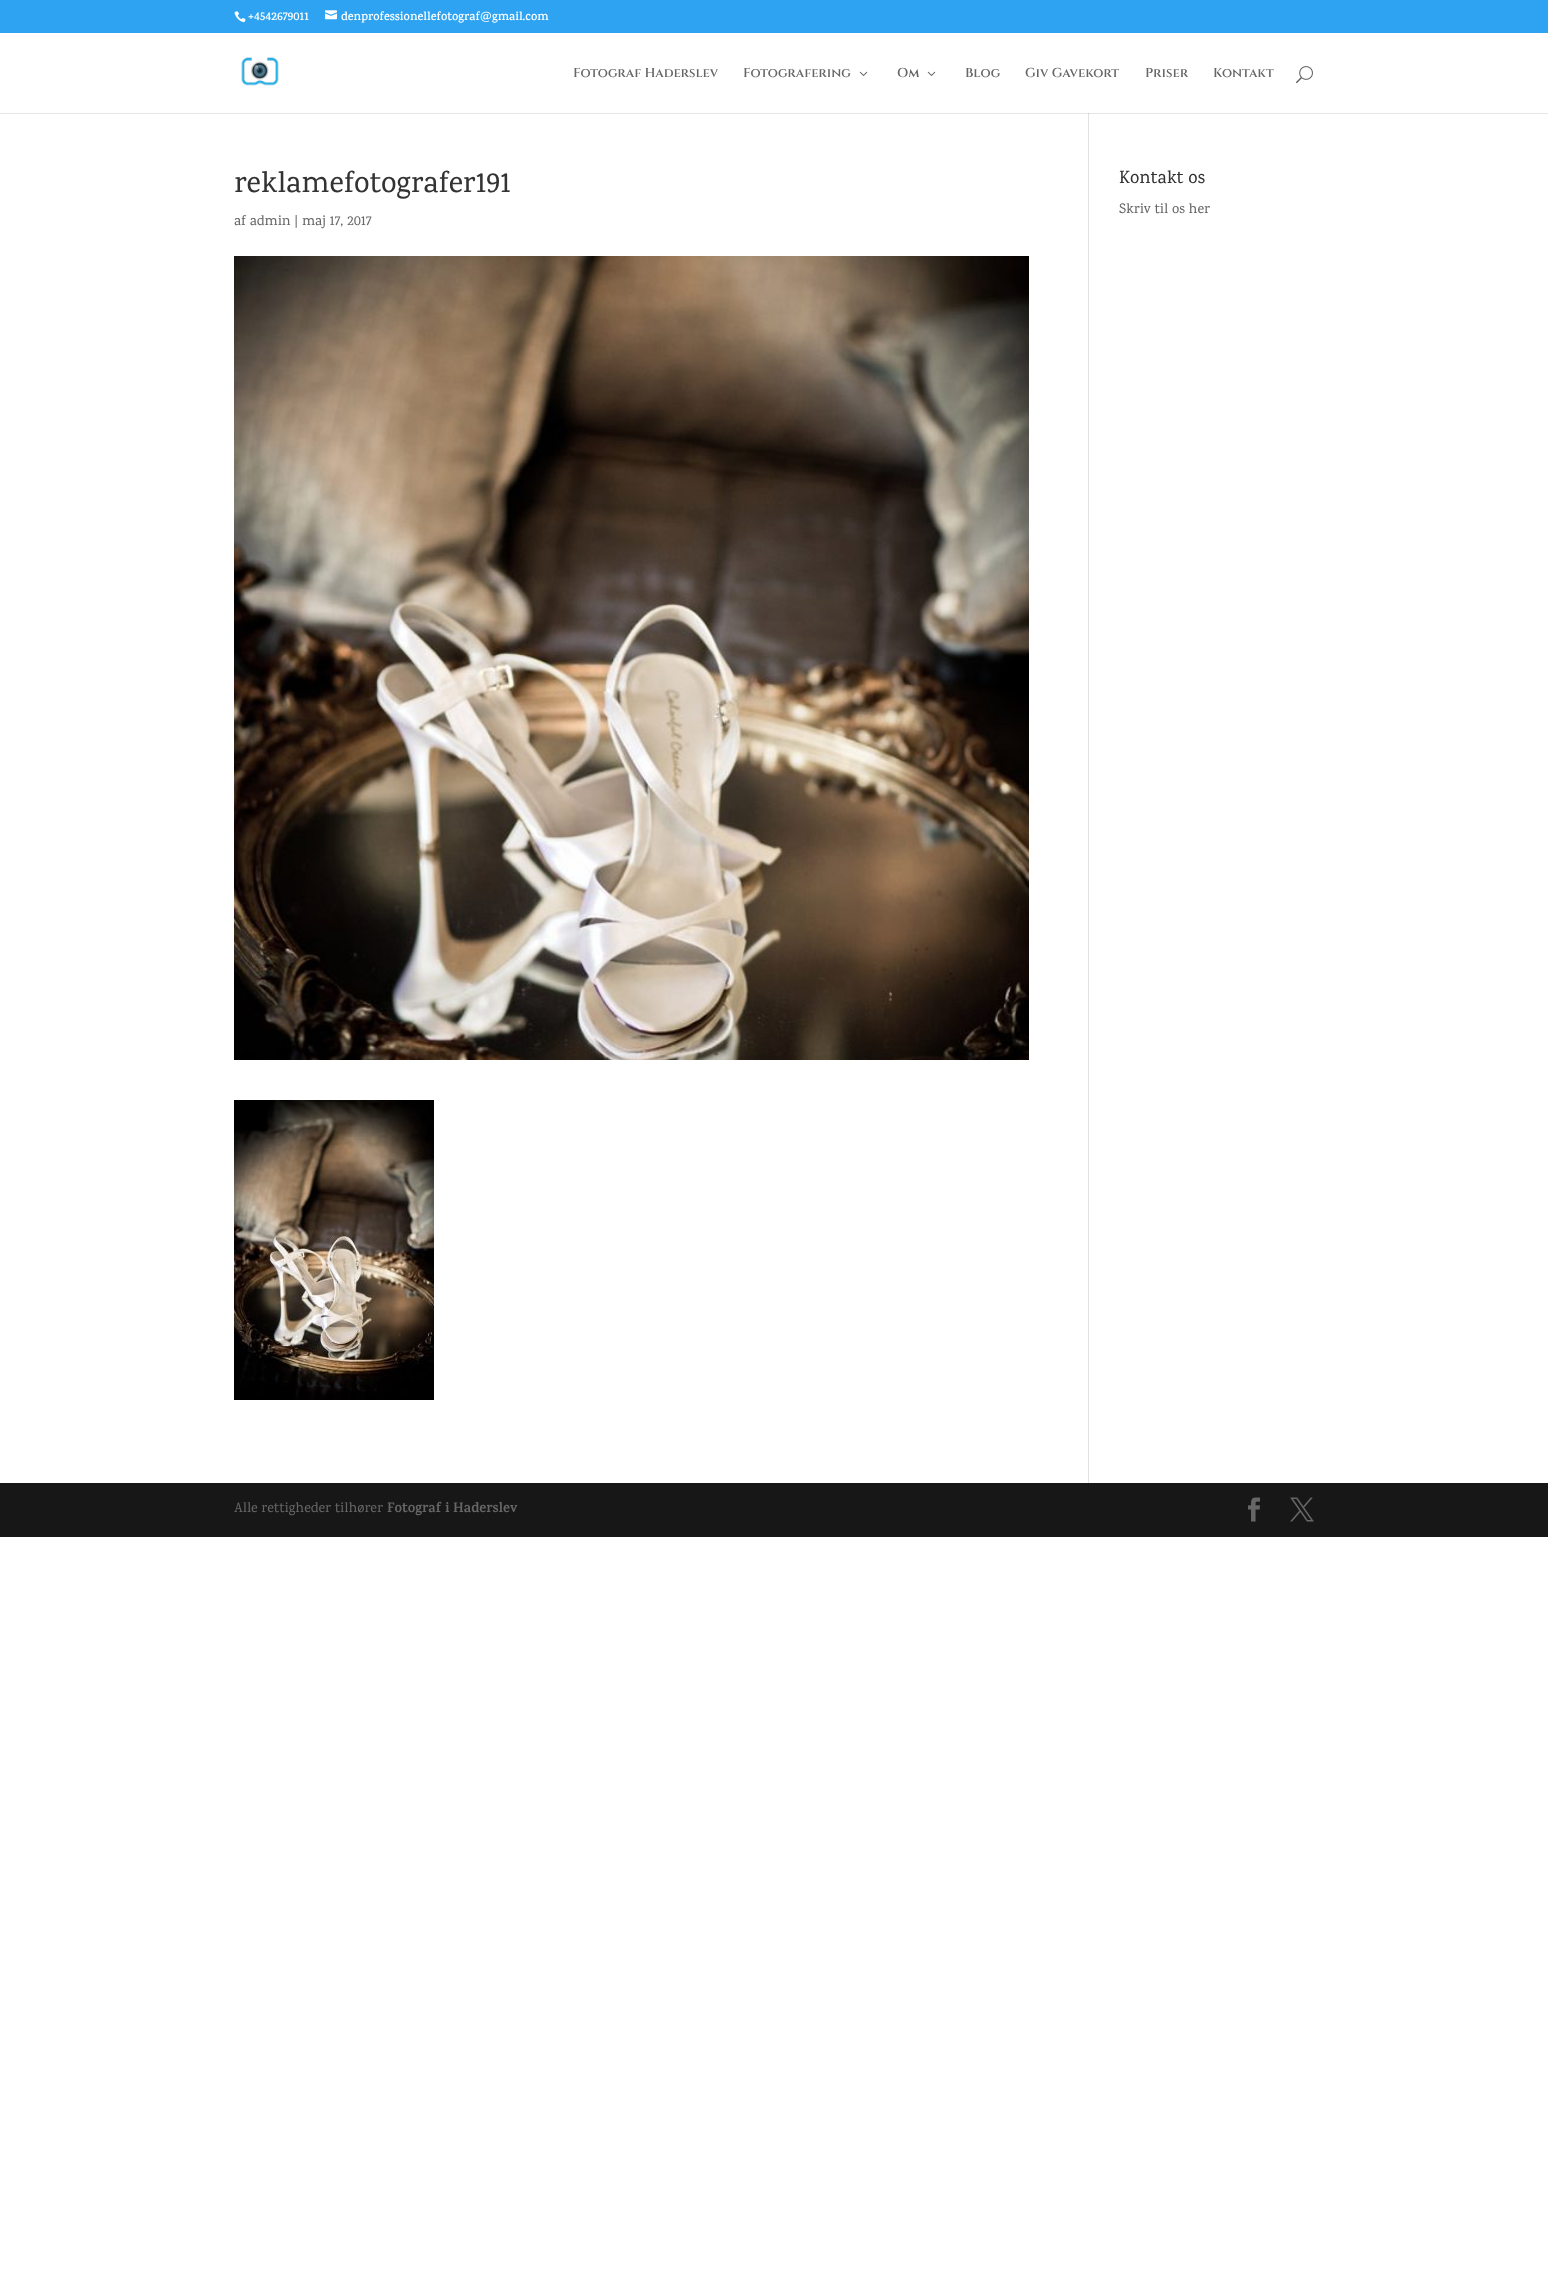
<svg xmlns="http://www.w3.org/2000/svg" xmlns:xlink="http://www.w3.org/1999/xlink" width="1548" height="2274" viewBox="0 0 1548 2274">
<style>
.cls-1{font:600 12px Karma;fill:#ffffff}
.cls-2{font:600 13px Cinzel;fill:#666666}
.cls-3{font:500 30px Karma;fill:#333333}
.cls-4{font:500 14px Karma;fill:#666666}
.cls-5{font:500 18px Karma;fill:#333333}
.cls-6{font:bold 14px Karma;fill:#666666}
</style>
<rect width="100%" height="100%" fill="#ffffff"/>
<rect fill="#e6e6e6" x="0" y="113" width="1548" height="1"/>
<rect fill="#2ea3f2" x="0" y="0" width="1548" height="33"/>
<image xlink:href="image0.png" x="234" y="11" width="12" height="12"/>
<image xlink:href="image1.png" x="325" y="10" width="12" height="10"/>
<image xlink:href="image2.png" x="241" y="57" width="38" height="29"/>
<image xlink:href="image3.png" x="859" y="71" width="9" height="5"/>
<image xlink:href="image3.png" x="927" y="71" width="9" height="5"/>
<image xlink:href="image4.png" x="1296" y="66" width="17" height="18"/>
<rect fill="#e2e2e2" x="1088" y="113" width="1" height="1370"/>
<rect fill="#cbcbcb" x="1088" y="113" width="1" height="1"/>
<image xlink:href="image5.png" x="234" y="256" width="795" height="804"/>
<image xlink:href="image6.png" x="234" y="1100" width="200" height="300"/>
<rect fill="#171717" x="0" y="1483" width="1548" height="54"/>
<image xlink:href="image7.png" x="1248" y="1497" width="12" height="25"/>
<image xlink:href="image8.png" x="1290" y="1497" width="24" height="25"/>
<text class="cls-1" x="248" y="20">+4542679011</text>
<text class="cls-1" x="341" y="20">denprofessionellefotograf@gmail.com</text>
<text class="cls-2" x="573" y="77">Fotograf Haderslev</text>
<text class="cls-2" x="743" y="77">Fotografering</text>
<text class="cls-2" x="897" y="77">Om</text>
<text class="cls-2" x="965" y="77">Blog</text>
<text class="cls-2" x="1025" y="77">Giv Gavekort</text>
<text class="cls-2" x="1145" y="77">Priser</text>
<text class="cls-2" x="1213" y="77">Kontakt</text>
<text class="cls-3" x="234" y="192">reklamefotografer191</text>
<text class="cls-4" x="234" y="225">af admin | maj 17, 2017</text>
<text class="cls-5" x="1119" y="183">Kontakt os</text>
<text class="cls-4" x="1119" y="213">Skriv til os her</text>
<text class="cls-4" x="234" y="1512">Alle rettigheder tilhører</text>
<text class="cls-6" x="387" y="1512">Fotograf i Haderslev</text>
</svg>
